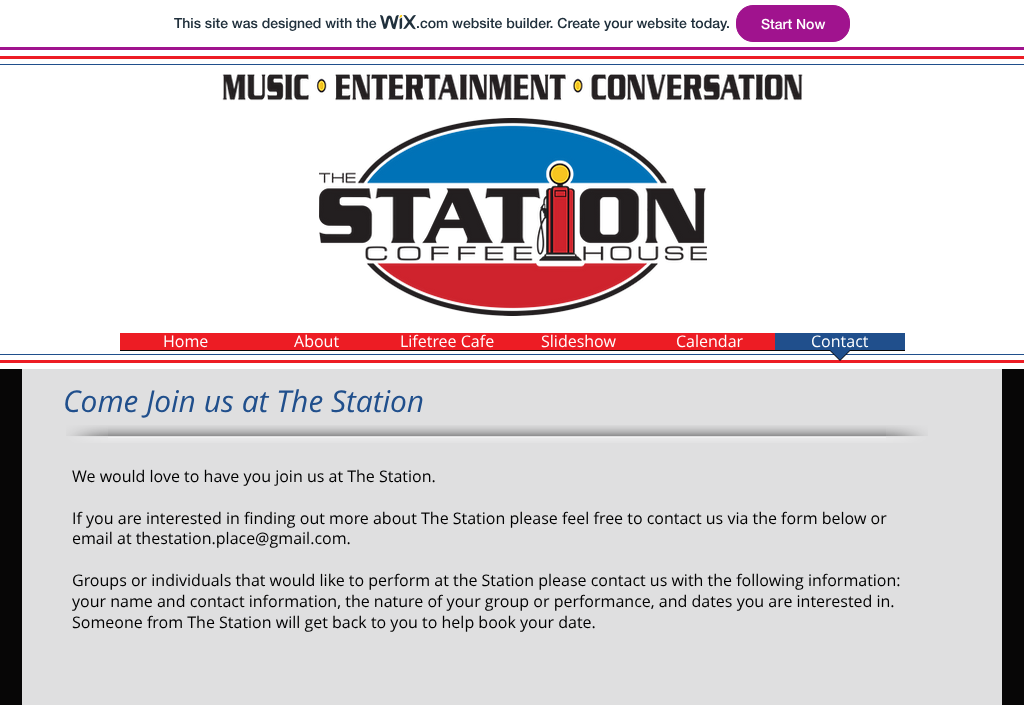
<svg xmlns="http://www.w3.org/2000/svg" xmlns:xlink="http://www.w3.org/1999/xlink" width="1024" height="705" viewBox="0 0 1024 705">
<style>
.cls-1{font:500 14px 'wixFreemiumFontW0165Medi';fill:#20303c}
.cls-2{font:500 14px 'wixFreemiumFontW0165Medi';fill:#ffffff}
.cls-3{font:16px Open Sans;fill:#ffffff}
.cls-4{font:italic 30px Open Sans;fill:#204f8c}
.cls-5{font:16px Open Sans;fill:#000000}
</style>
<rect width="100%" height="100%" fill="#070606"/>
<rect fill="#ffffff" x="0" y="0" width="1024" height="47"/>
<rect fill="#a0138e" x="0" y="47" width="1024" height="3"/>
<image xlink:href="image0.png" x="380" y="15" width="36" height="15"/>
<rect fill="#a0138e" stroke="#a0138e" x="736.5" y="5.5" width="113" height="36" rx="16.5"/>
<rect fill="#ffffff" x="0" y="50" width="1024" height="319"/>
<rect fill="#ed1c24" x="0" y="56" width="1024" height="3"/>
<rect fill="#ed1c24" x="0" y="360" width="1024" height="3"/>
<rect fill="#204f8c" x="0" y="64" width="1024" height="1"/>
<rect fill="#204f8c" x="0" y="354" width="1024" height="1"/>
<image xlink:href="image1.png" x="222" y="74" width="581" height="27"/>
<image xlink:href="image2.png" x="319" y="118" width="388" height="198"/>
<rect fill="#ed1c24" x="120" y="333" width="655" height="17"/>
<rect fill="#070606" x="120" y="350" width="785" height="1"/>
<rect fill="#204f8c" x="775" y="333" width="130" height="17"/>
<path fill="#070606" d="M829 350H851L840 361Z"/>
<path fill="#204f8c" d="M830 350H850L840 360Z"/>
<rect fill="#dfdfe0" x="22" y="369" width="980" height="336"/>
<image xlink:href="image3.png" x="108" y="425" width="778" height="18"/>
<image xlink:href="image4.png" x="66" y="425" width="42" height="18"/>
<image xlink:href="image5.png" x="886" y="425" width="42" height="18"/>
<text class="cls-1" x="174" y="28">This site was designed with the</text>
<text class="cls-1" x="416" y="28">.com website builder. Create your website today.</text>
<text class="cls-2" x="761" y="29">Start Now</text>
<text class="cls-3" x="163" y="347">Home</text>
<text class="cls-3" x="294" y="347">About</text>
<text class="cls-3" x="400" y="347">Lifetree Cafe</text>
<text class="cls-3" x="541" y="347">Slideshow</text>
<text class="cls-3" x="676" y="347">Calendar</text>
<text class="cls-3" x="811" y="347">Contact</text>
<text class="cls-4" x="63" y="412">Come Join us at The Station</text>
<text class="cls-5" x="72" y="482">We would love to have you join us at The Station.</text>
<text class="cls-5"><tspan x="72" y="524">If you are interested in finding out more about The Station please feel free to contact us via the form below or</tspan><tspan x="72" y="544">email at thestation.place@gmail.com.</tspan></text>
<text class="cls-5"><tspan x="72" y="586">Groups or individuals that would like to perform at the Station please contact us with the following information:</tspan><tspan x="72" y="607">your name and contact information, the nature of your group or performance, and dates you are interested in.</tspan><tspan x="72" y="628">Someone from The Station will get back to you to help book your date.</tspan></text>
</svg>
